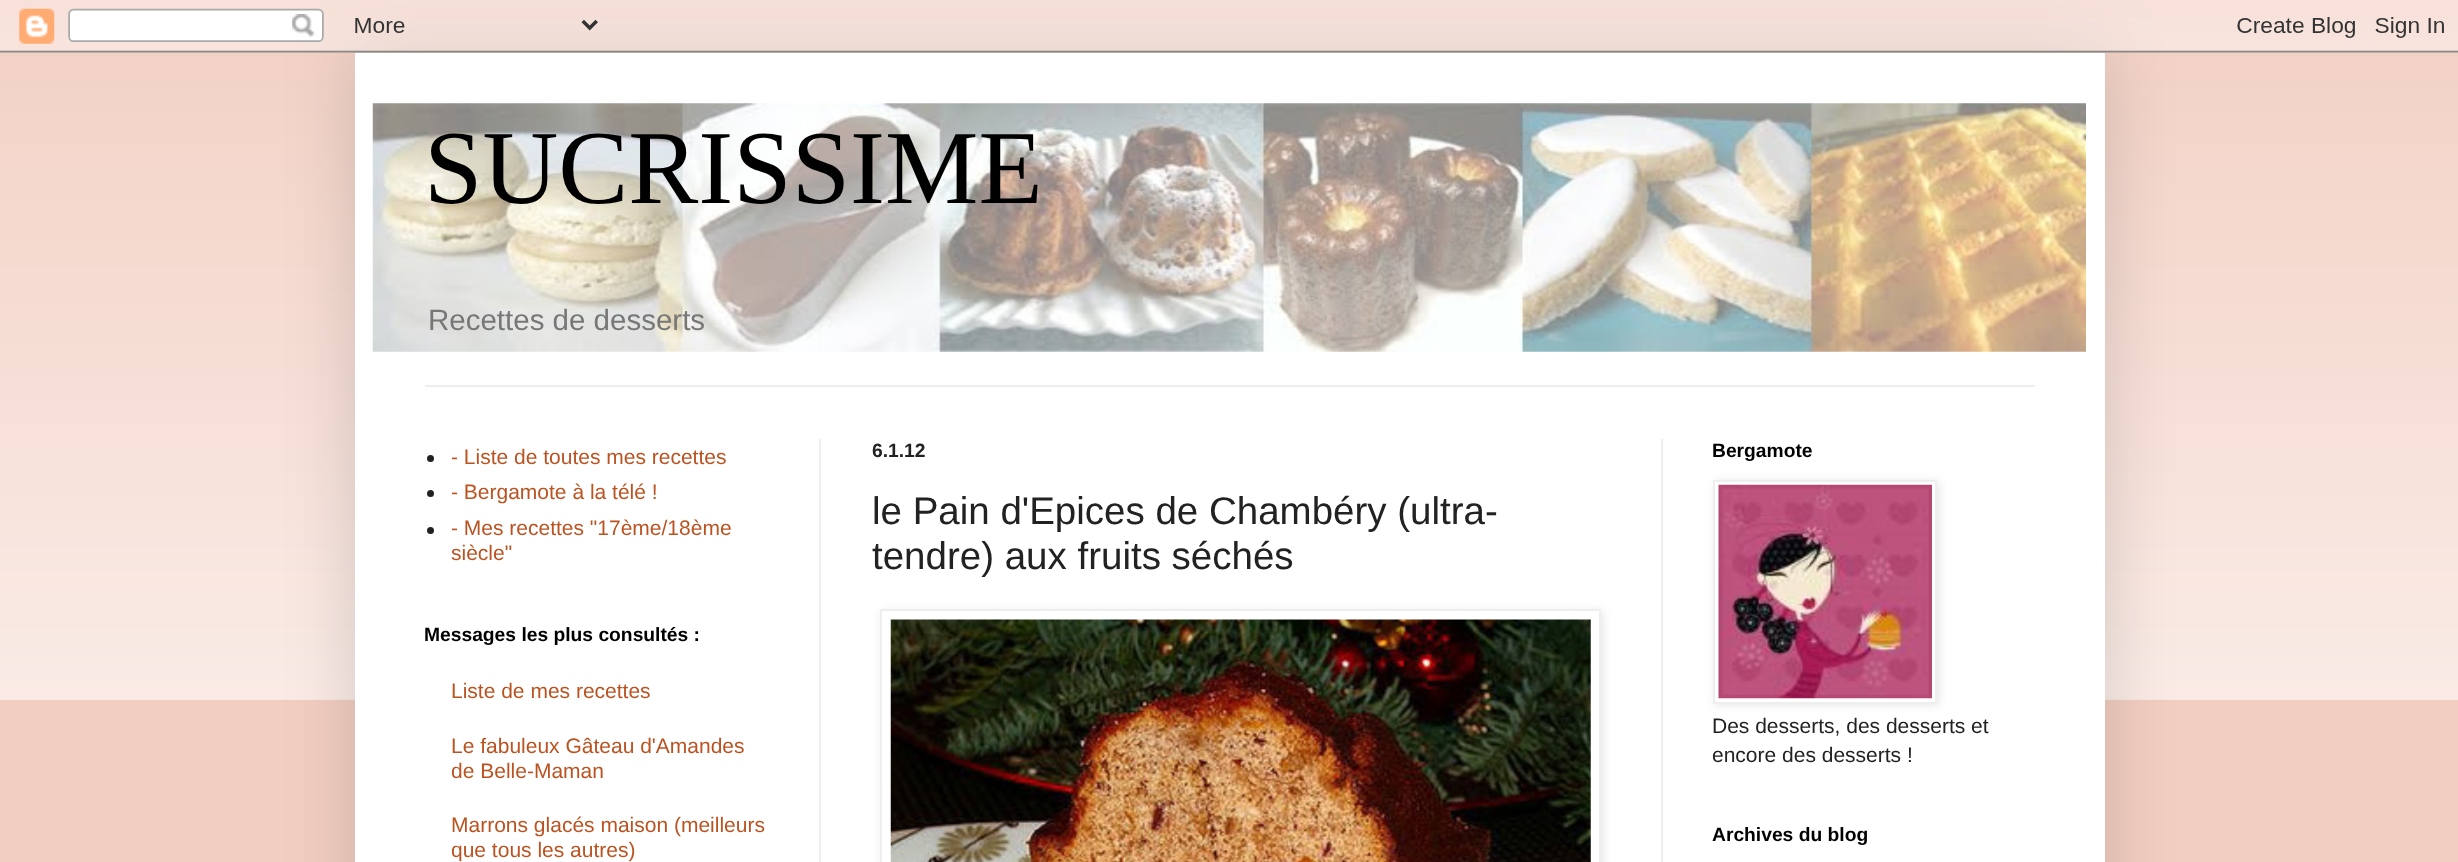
<svg xmlns="http://www.w3.org/2000/svg" xmlns:xlink="http://www.w3.org/1999/xlink" width="2458" height="862" viewBox="0 0 2458 862">
<style>
.cls-1{font:105px Liberation Serif;fill:#000000}
.cls-2{font:29.5px Liberation Sans;fill:#777777}
.cls-3{font:21px Liberation Sans;fill:#bb5321}
.cls-4{font:bold 19.25px Liberation Sans;fill:#000000}
.cls-5{font:bold 19.25px Liberation Sans;fill:#222222}
.cls-6{font:38.5px Liberation Sans;fill:#222222}
.cls-7{font:21px Liberation Sans;fill:#222222}
</style>
<rect width="100%" height="100%" fill="#f2cec1"/>
<image xlink:href="image1.png" x="0" y="18" width="2458" height="682"/>
<rect fill="#000000" fill-opacity="0.15" filter="blur(35px)" x="355" y="53" width="1750" height="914"/>
<image xlink:href="image0.png" x="0" y="0" width="2458" height="53"/>
<rect fill="#ffffff" x="355" y="53" width="1750" height="809"/>
<image xlink:href="image2.png" x="372" y="103" width="1714" height="249"/>
<rect fill="#eeeeee" x="425" y="385" width="1610" height="2"/>
<rect fill="#eeeeee" x="819" y="439" width="2" height="423"/>
<rect fill="#eeeeee" x="1661" y="439" width="2" height="423"/>
<circle fill="#222222" cx="430.5" cy="458.5" r="3.5"/>
<circle fill="#222222" cx="430.5" cy="493.5" r="3.5"/>
<circle fill="#222222" cx="430.5" cy="530.5" r="3.5"/>
<rect fill="#000000" fill-opacity="0.1" filter="blur(4.5px)" x="882" y="611" width="721" height="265"/>
<rect fill="#ffffff" stroke="#eeeeee" stroke-width="2" x="881" y="610" width="719" height="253"/>
<image xlink:href="image3.png" x="890" y="619" width="701" height="243"/>
<rect fill="#000000" fill-opacity="0.1" filter="blur(4.5px)" x="1715" y="481" width="224" height="224"/>
<rect fill="#ffffff" stroke="#eeeeee" stroke-width="2" x="1714" y="481" width="222" height="222"/>
<image xlink:href="image4.png" x="1718" y="484" width="214" height="215"/>
<text class="cls-1" x="424" y="203">SUCRISSIME</text>
<text class="cls-2" x="428" y="330">Recettes de desserts</text>
<text class="cls-3"><tspan x="451" y="464">- Liste de toutes mes recettes</tspan><tspan x="451" y="499">- Bergamote à la télé !</tspan><tspan x="451" y="535">- Mes recettes "17ème/18ème</tspan><tspan x="451" y="560">siècle"</tspan></text>
<text class="cls-4" x="424" y="641">Messages les plus consultés :</text>
<text class="cls-3" x="451" y="698">Liste de mes recettes</text>
<text class="cls-3"><tspan x="451" y="753">Le fabuleux Gâteau d'Amandes</tspan><tspan x="451" y="778">de Belle-Maman</tspan></text>
<text class="cls-3"><tspan x="451" y="832">Marrons glacés maison (meilleurs</tspan><tspan x="451" y="857">que tous les autres)</tspan></text>
<text class="cls-5" x="872" y="457">6.1.12</text>
<text class="cls-6"><tspan x="872" y="524">le Pain d'Epices de Chambéry (ultra-</tspan><tspan x="872" y="569">tendre) aux fruits séchés</tspan></text>
<text class="cls-4" x="1712" y="457">Bergamote</text>
<text class="cls-7"><tspan x="1712" y="733">Des desserts, des desserts et</tspan><tspan x="1712" y="762">encore des desserts !</tspan></text>
<text class="cls-4" x="1712" y="841">Archives du blog</text>
</svg>
